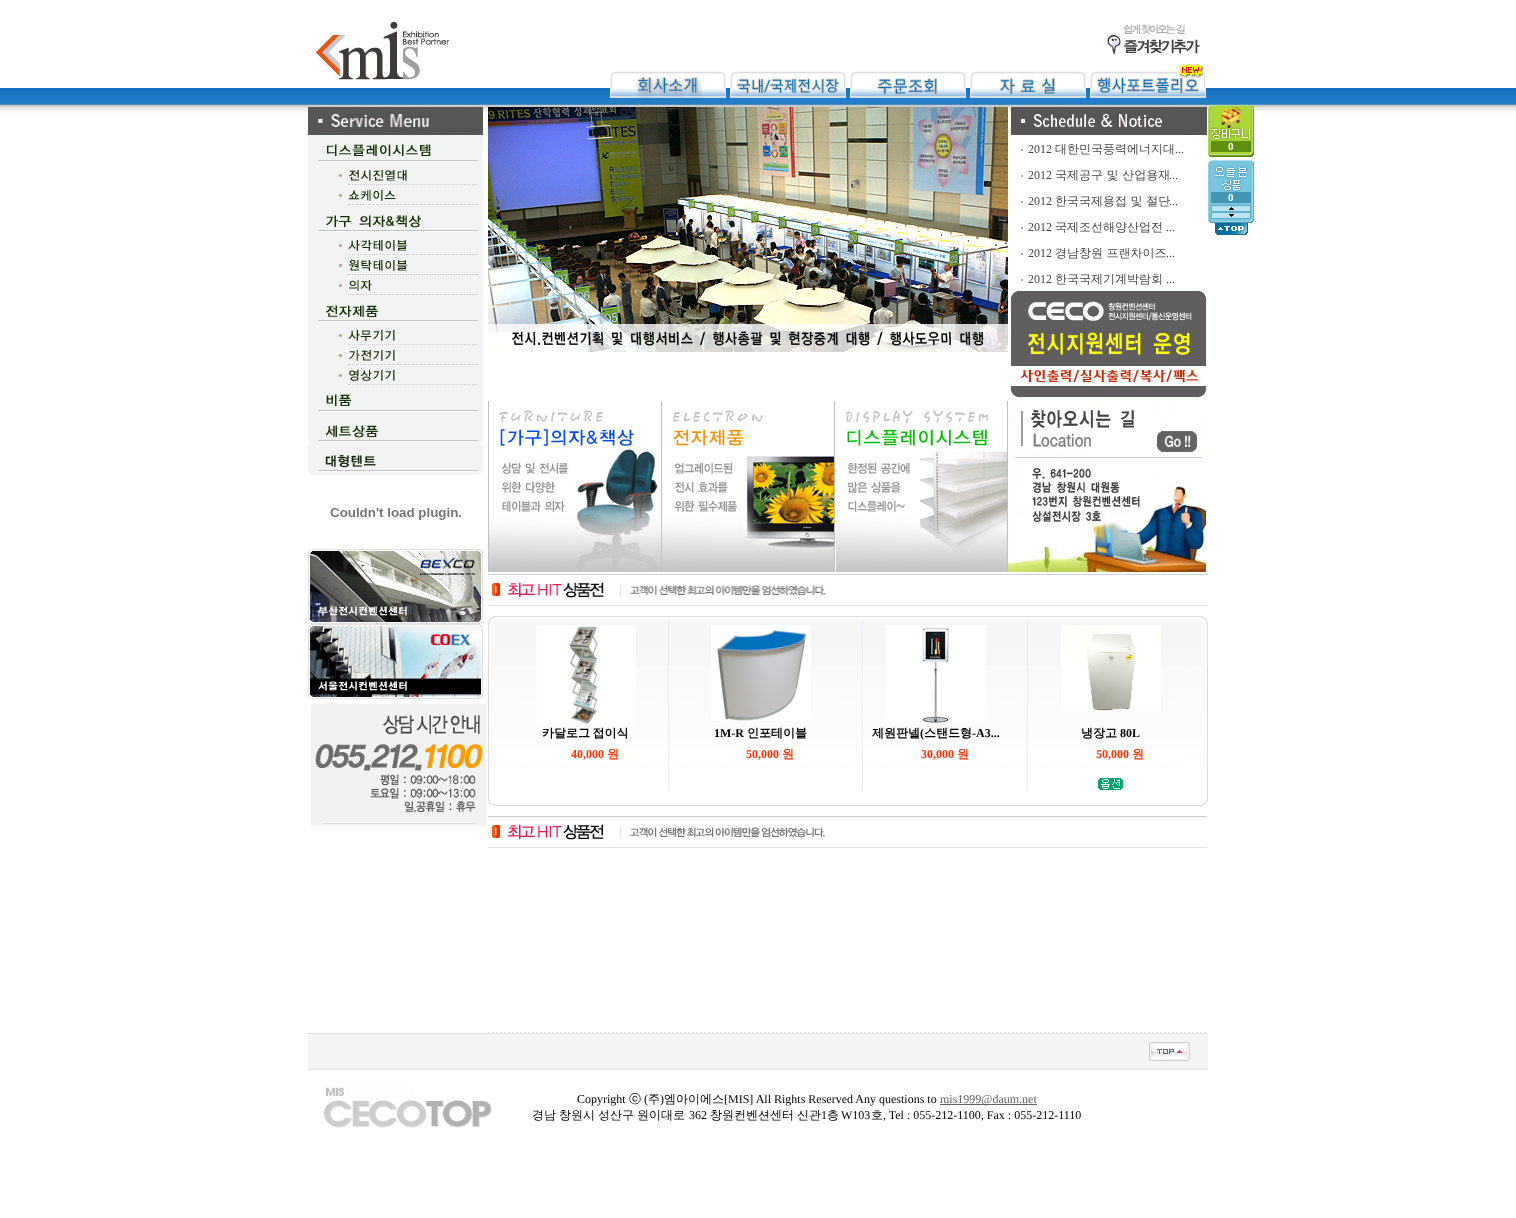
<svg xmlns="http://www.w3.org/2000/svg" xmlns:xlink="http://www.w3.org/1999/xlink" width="1516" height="1218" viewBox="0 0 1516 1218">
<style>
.cls-1{font:12px Liberation Serif;fill:#464646}
.cls-2{font:500 12px WenQuanYi Zen Hei;fill:#464646}
.cls-3{font:bold 12px WenQuanYi Zen Hei;fill:#000000}
.cls-4{font:bold 12px Liberation Serif;fill:#ff3000}
.cls-5{font:bold 12px WenQuanYi Zen Hei;fill:#ff3000}
.cls-6{font:bold 12px Liberation Serif;fill:#000000}
.cls-7{font:12px Liberation Serif;fill:#000000}
.cls-8{font:500 12px WenQuanYi Zen Hei;fill:#000000}
.cls-9{font:12px Liberation Serif;fill:#636363}
.cls-10{font:bold 11px Liberation Serif;fill:#ffffff}
</style>
<rect width="100%" height="100%" fill="#ffffff"/>
<image xlink:href="image0.png" x="0" y="88" width="1516" height="25"/>
<image xlink:href="image1.png" x="308" y="107" width="175" height="28"/>
<image xlink:href="image2.png" x="308" y="135" width="175" height="30"/>
<image xlink:href="image3.png" x="308" y="165" width="175" height="20"/>
<image xlink:href="image4.png" x="308" y="185" width="175" height="20"/>
<image xlink:href="image5.png" x="308" y="205" width="175" height="30"/>
<image xlink:href="image6.png" x="308" y="235" width="175" height="20"/>
<image xlink:href="image7.png" x="308" y="255" width="175" height="20"/>
<image xlink:href="image8.png" x="308" y="275" width="175" height="20"/>
<image xlink:href="image9.png" x="308" y="295" width="175" height="30"/>
<image xlink:href="image10.png" x="308" y="325" width="175" height="20"/>
<image xlink:href="image11.png" x="308" y="345" width="175" height="20"/>
<image xlink:href="image12.png" x="308" y="365" width="175" height="20"/>
<image xlink:href="image13.png" x="308" y="385" width="175" height="30"/>
<image xlink:href="image14.png" x="308" y="415" width="175" height="30"/>
<image xlink:href="image15.png" x="308" y="445" width="175" height="30"/>
<image xlink:href="image16.png" x="330" y="508" width="131" height="12"/>
<image xlink:href="image17.png" x="308" y="549" width="175" height="75"/>
<image xlink:href="image18.png" x="308" y="624" width="175" height="75"/>
<image xlink:href="image19.png" x="311" y="704" width="175" height="122"/>
<image xlink:href="image20.png" x="488" y="107" width="520" height="245"/>
<image xlink:href="image21.png" x="1011" y="107" width="196" height="28"/>
<rect fill="#acacac" x="1021" y="149" width="2" height="2"/>
<rect fill="#acacac" x="1021" y="175" width="2" height="2"/>
<rect fill="#acacac" x="1021" y="201" width="2" height="2"/>
<rect fill="#acacac" x="1021" y="227" width="2" height="2"/>
<rect fill="#acacac" x="1021" y="253" width="2" height="2"/>
<rect fill="#acacac" x="1021" y="279" width="2" height="2"/>
<image xlink:href="image22.png" x="1011" y="291" width="195" height="106"/>
<image xlink:href="image23.png" x="488" y="401" width="174" height="171"/>
<image xlink:href="image24.png" x="662" y="401" width="173" height="171"/>
<image xlink:href="image25.png" x="836" y="401" width="172" height="171"/>
<image xlink:href="image26.png" x="1008" y="397" width="200" height="175"/>
<image xlink:href="image27.png" x="488" y="574" width="720" height="32"/>
<image xlink:href="image28.png" x="488" y="616" width="720" height="190"/>
<image xlink:href="image29.png" x="536" y="625" width="100" height="99"/>
<image xlink:href="image30.png" x="711" y="625" width="100" height="96"/>
<image xlink:href="image31.png" x="886" y="625" width="100" height="98"/>
<image xlink:href="image32.png" x="1061" y="625" width="100" height="86"/>
<image xlink:href="image33.png" x="1098" y="778" width="25" height="12"/>
<image xlink:href="image34.png" x="488" y="816" width="719" height="32"/>
<image xlink:href="image35.png" x="488" y="1032" width="717" height="1"/>
<rect fill="#e1e1e1" x="308" y="1033" width="900" height="1"/>
<rect fill="#f4f4f4" x="308" y="1034" width="900" height="35"/>
<image xlink:href="image36.png" x="1148" y="1042" width="42" height="19"/>
<rect fill="#e1e1e1" x="308" y="1069" width="900" height="1"/>
<image xlink:href="image37.png" x="324" y="1087" width="168" height="41"/>
<rect fill="#636363" x="940" y="1104" width="97" height="1"/>
<image xlink:href="image38.png" x="316" y="22" width="133" height="58"/>
<image xlink:href="image39.png" x="1107" y="24" width="93" height="31"/>
<image xlink:href="image40.png" x="610" y="71" width="116" height="27"/>
<image xlink:href="image41.png" x="730" y="71" width="116" height="27"/>
<image xlink:href="image42.png" x="850" y="71" width="116" height="27"/>
<image xlink:href="image43.png" x="970" y="71" width="116" height="27"/>
<image xlink:href="image44.png" x="1090" y="64" width="116" height="34"/>
<image xlink:href="image45.png" x="1208" y="105" width="46" height="36"/>
<image xlink:href="image46.png" x="1208" y="141" width="46" height="11"/>
<rect fill="#5f8f0f" x="1211" y="141" width="40" height="11"/>
<image xlink:href="image47.png" x="1208" y="152" width="46" height="5"/>
<image xlink:href="image48.png" x="1208" y="160" width="46" height="32"/>
<image xlink:href="image49.png" x="1208" y="192" width="46" height="27"/>
<rect fill="#4296b5" x="1211" y="192" width="40" height="11"/>
<image xlink:href="image50.png" x="1211" y="205" width="40" height="7"/>
<image xlink:href="image51.png" x="1211" y="212" width="40" height="7"/>
<image xlink:href="image52.png" x="1208" y="219" width="46" height="4"/>
<image xlink:href="image53.png" x="1215" y="223" width="33" height="12"/>
<text class="cls-1" x="1028" y="153">2012</text>
<text class="cls-2" x="1055" y="153">대한민국풍력에너지대</text>
<text class="cls-1" x="1175" y="153">...</text>
<text class="cls-1" x="1028" y="179">2012</text>
<text class="cls-2" x="1055" y="179">국제공구 및 산업용재</text>
<text class="cls-1" x="1169" y="179">...</text>
<text class="cls-1" x="1028" y="205">2012</text>
<text class="cls-2" x="1055" y="205">한국국제용접 및 절단</text>
<text class="cls-1" x="1169" y="205">...</text>
<text class="cls-1" x="1028" y="231">2012</text>
<text class="cls-2" x="1055" y="231">국제조선해양산업전</text>
<text class="cls-1" x="1166" y="231">...</text>
<text class="cls-1" x="1028" y="257">2012</text>
<text class="cls-2" x="1055" y="257">경남창원 프랜차이즈</text>
<text class="cls-1" x="1166" y="257">...</text>
<text class="cls-1" x="1028" y="283">2012</text>
<text class="cls-2" x="1055" y="283">한국국제기계박람회</text>
<text class="cls-1" x="1166" y="283">...</text>
<text class="cls-3" x="542" y="737" word-spacing="-1">카달로그 접이식</text>
<text class="cls-4" x="571" y="758">40,000</text>
<text class="cls-5" x="607" y="758">원</text>
<text class="cls-6" x="714" y="737">1M-R</text>
<text class="cls-3" x="747" y="737">인포테이블</text>
<text class="cls-4" x="746" y="758">50,000</text>
<text class="cls-5" x="782" y="758">원</text>
<text class="cls-3" x="872" y="737">제원판넬</text>
<text class="cls-6" x="920" y="737">(</text>
<text class="cls-3" x="924" y="737">스탠드형</text>
<text class="cls-6" x="972" y="737">-A3...</text>
<text class="cls-4" x="921" y="758">30,000</text>
<text class="cls-5" x="957" y="758">원</text>
<text class="cls-3" x="1081" y="737">냉장고</text>
<text class="cls-6" x="1120" y="737">80L</text>
<text class="cls-4" x="1096" y="758">50,000</text>
<text class="cls-5" x="1132" y="758">원</text>
<text class="cls-7" x="577" y="1103">Copyright</text>
<text class="cls-8" x="629" y="1103">ⓒ</text>
<text class="cls-7" x="644" y="1103">(</text>
<text class="cls-8" x="648" y="1103">주</text>
<text class="cls-7" x="660" y="1103">)</text>
<text class="cls-8" x="664" y="1103">엠아이에스</text>
<text class="cls-7" x="724" y="1103">[MIS] All Rights Reserved Any questions to</text>
<text class="cls-9" x="940" y="1103">mis1999@daum.net</text>
<text class="cls-8" x="532" y="1119">경남</text>
<text class="cls-8" x="559" y="1119">창원시</text>
<text class="cls-8" x="598" y="1119">성산구</text>
<text class="cls-8" x="637" y="1119">원이대로</text>
<text class="cls-7" x="689" y="1119">362</text>
<text class="cls-8" x="710" y="1119">창원컨벤션센터</text>
<text class="cls-8" x="797" y="1119">신관</text>
<text class="cls-7" x="821" y="1119">1</text>
<text class="cls-8" x="827" y="1119">층</text>
<text class="cls-7" x="841" y="1119">W103</text>
<text class="cls-8" x="871" y="1119">호</text>
<text class="cls-7" x="883" y="1119">, Tel : 055-212-1100, Fax : 055-212-1110</text>
<text class="cls-10" x="1228" y="150">0</text>
<text class="cls-10" x="1228" y="201">0</text>
</svg>
